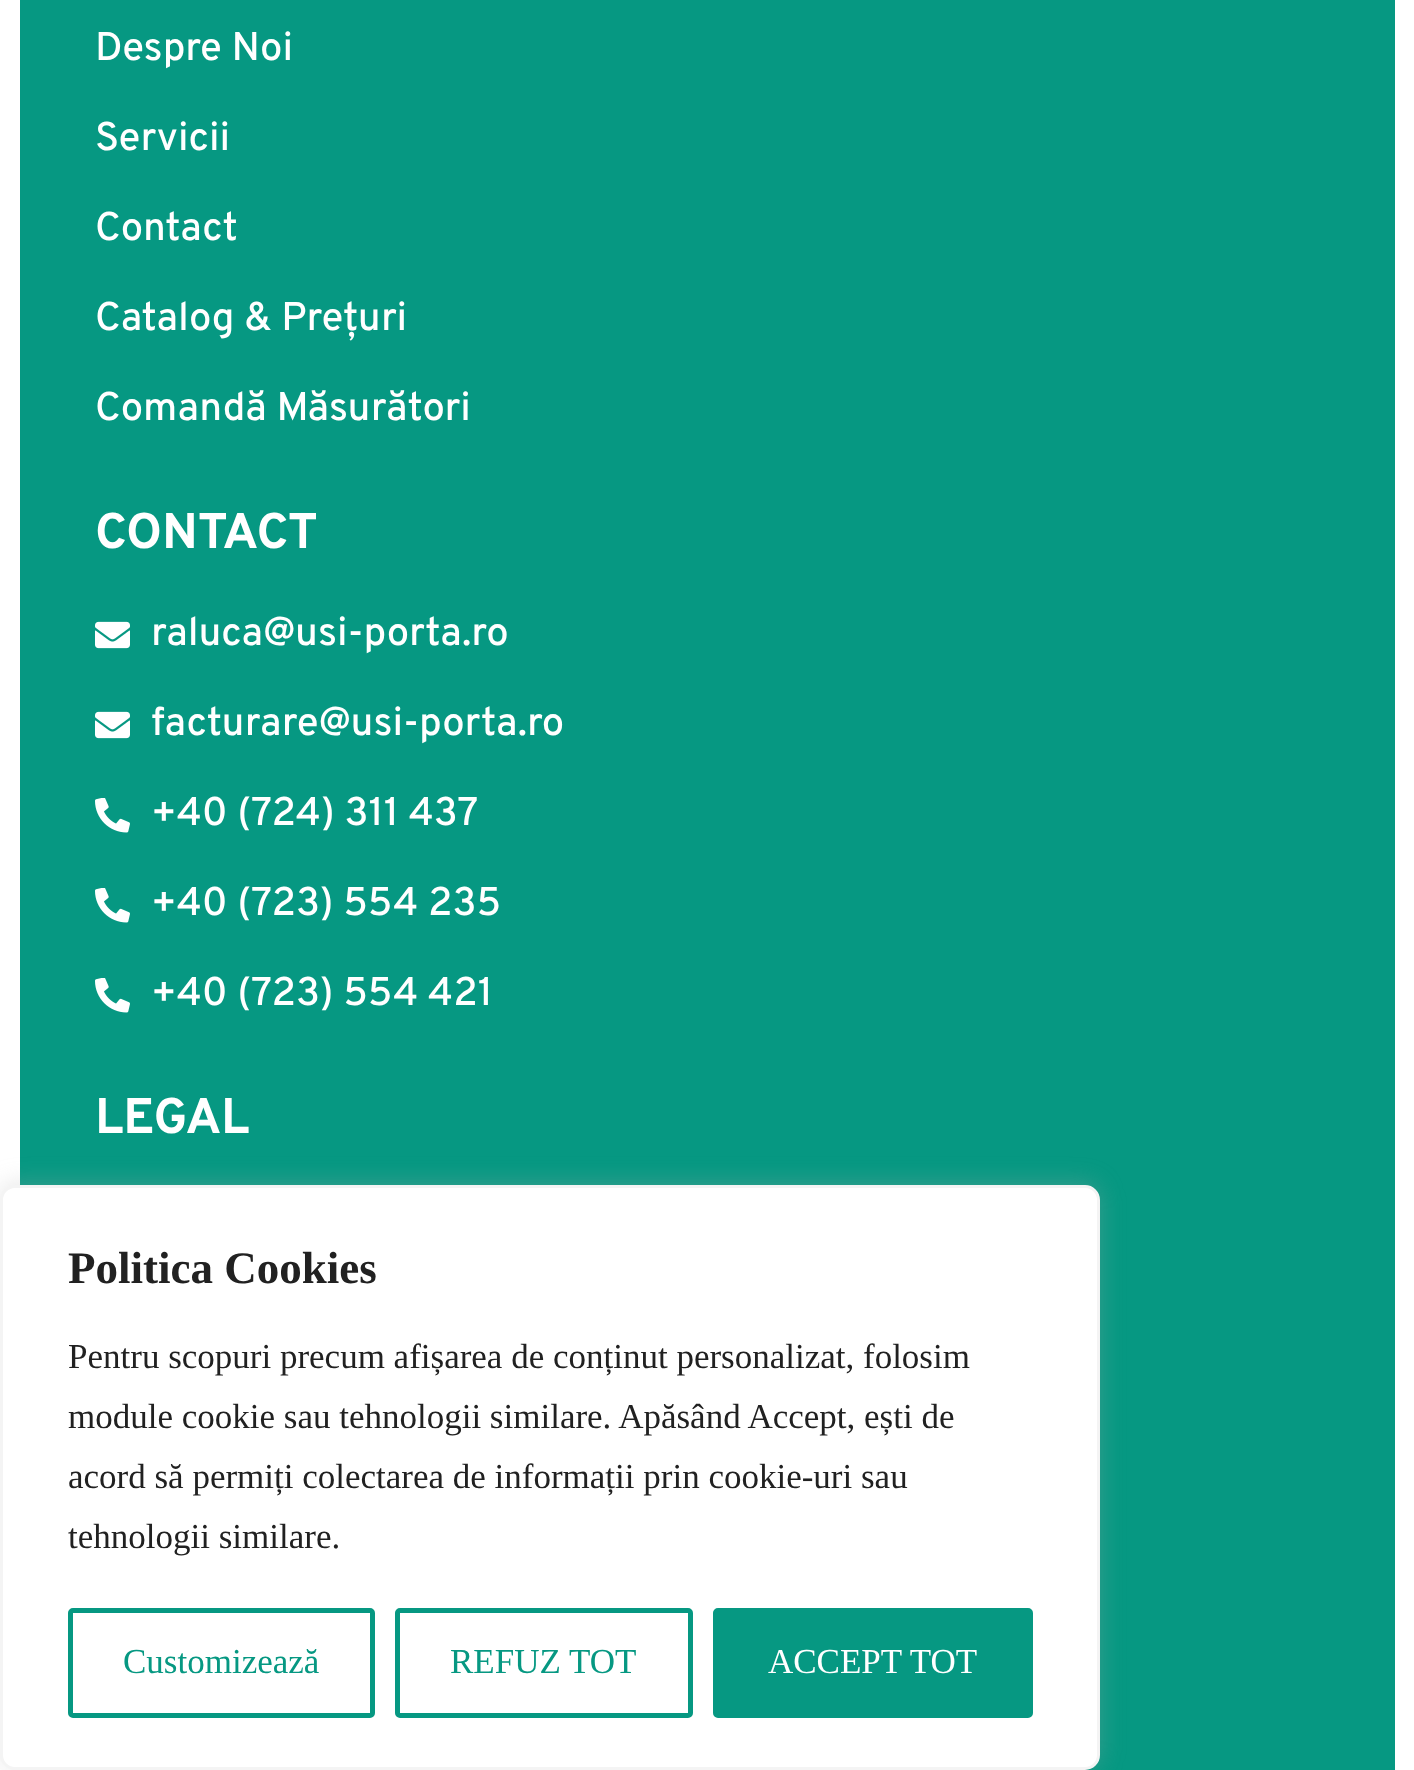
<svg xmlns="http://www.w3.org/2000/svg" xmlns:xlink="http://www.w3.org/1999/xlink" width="1414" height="1770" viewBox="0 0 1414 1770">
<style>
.cls-1{font:500 40px Overpass;fill:#ffffff}
.cls-2{font:bold 50px Overpass;fill:#ffffff}
.cls-3{font:bold 45px Liberation Serif;fill:#212121}
.cls-4{font:35px Liberation Serif;fill:#212121}
.cls-5{font:35px Liberation Serif;fill:#069882}
.cls-6{font:35px Liberation Serif;fill:#ffffff}
</style>
<rect width="100%" height="100%" fill="#ffffff"/>
<rect fill="#069882" x="20" y="0" width="1375" height="1770"/>
<image xlink:href="image0.png" x="95" y="621" width="35" height="28"/>
<image xlink:href="image0.png" x="95" y="711" width="35" height="28"/>
<image xlink:href="image1.png" x="95" y="798" width="35" height="35"/>
<image xlink:href="image1.png" x="95" y="888" width="35" height="35"/>
<image xlink:href="image1.png" x="95" y="978" width="35" height="35"/>
<rect fill="#acabab" fill-opacity="0.3" filter="blur(12.5px)" x="0" y="1183" width="1100" height="585" rx="15"/>
<rect fill="#ffffff" stroke="#f4f4f4" stroke-width="3" x="1.5" y="1186.5" width="1097" height="582" rx="13.5"/>
<rect fill="none" stroke="#069882" stroke-width="5" x="70.5" y="1610.5" width="302" height="105" rx="2.5"/>
<rect fill="none" stroke="#069882" stroke-width="5" x="397.5" y="1610.5" width="293" height="105" rx="2.5"/>
<rect fill="#069882" stroke="#069882" stroke-width="5" x="715.5" y="1610.5" width="315" height="105" rx="2.5"/>
<text class="cls-1" x="95" y="60">Despre Noi</text>
<text class="cls-1" x="95" y="150">Servicii</text>
<text class="cls-1" x="95" y="240">Contact</text>
<text class="cls-1" x="95" y="330">Catalog &amp; Prețuri</text>
<text class="cls-1" x="95" y="420">Comandă Măsurători</text>
<text class="cls-2" x="95" y="548">CONTACT</text>
<text class="cls-1" x="151" y="645">raluca@usi-porta.ro</text>
<text class="cls-1" x="151" y="735">facturare@usi-porta.ro</text>
<text class="cls-1" x="151" y="825">+40 (724) 311 437</text>
<text class="cls-1" x="151" y="915">+40 (723) 554 235</text>
<text class="cls-1" x="151" y="1005">+40 (723) 554 421</text>
<text class="cls-2" x="95" y="1133">LEGAL</text>
<text class="cls-3" x="68" y="1283">Politica Cookies</text>
<text class="cls-4"><tspan x="68" y="1368">Pentru scopuri precum afișarea de conținut personalizat, folosim</tspan><tspan x="68" y="1428">module cookie sau tehnologii similare. Apăsând Accept, ești de</tspan><tspan x="68" y="1488">acord să permiți colectarea de informații prin cookie-uri sau</tspan><tspan x="68" y="1548">tehnologii similare.</tspan></text>
<text class="cls-5" x="123" y="1673">Customizează</text>
<text class="cls-5" x="450" y="1673">REFUZ TOT</text>
<text class="cls-6" x="768" y="1673">ACCEPT TOT</text>
</svg>
